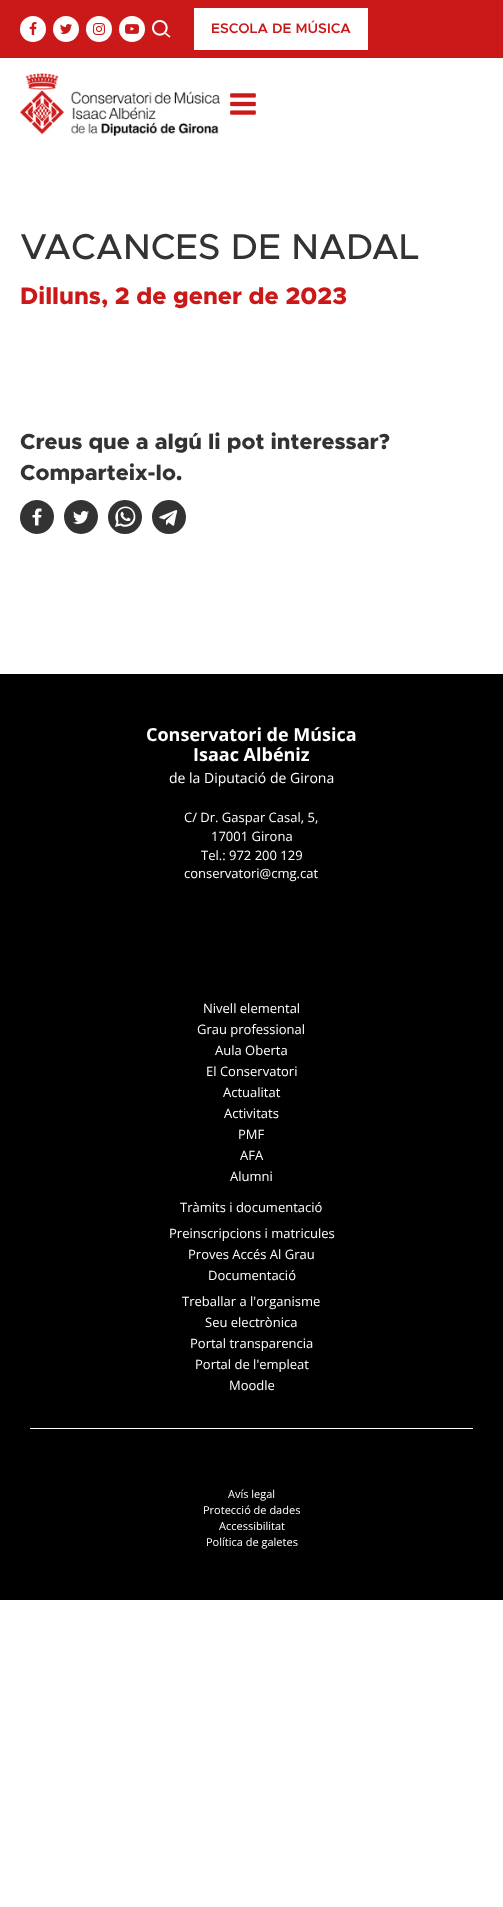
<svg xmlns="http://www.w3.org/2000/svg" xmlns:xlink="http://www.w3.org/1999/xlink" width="503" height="1907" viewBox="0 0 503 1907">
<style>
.cls-1{font:600 14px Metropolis;fill:#cb1919}
.cls-2{font:500 36px Metropolis;fill:#333333}
.cls-3{font:800 24px Metropolis;fill:#cb1919}
.cls-4{font:800 22px Metropolis;fill:#333333}
.cls-5{font:bold 18px Open Sans;fill:#ffffff}
.cls-6{font:14px Open Sans;fill:#ffffff}
.cls-7{font:13px Open Sans;fill:#ffffff}
.cls-8{font:11px Open Sans;fill:#ffffff}
</style>
<rect width="100%" height="100%" fill="#ffffff"/>
<rect fill="#cb1919" x="0" y="0" width="503" height="58"/>
<circle fill="#ffffff" cx="33" cy="29" r="13"/>
<image xlink:href="image0.png" x="29" y="22" width="8" height="13"/>
<circle fill="#ffffff" cx="66" cy="29" r="13"/>
<image xlink:href="image1.png" x="60" y="24" width="12" height="10"/>
<circle fill="#ffffff" cx="99" cy="29" r="13"/>
<image xlink:href="image2.png" x="93" y="23" width="12" height="12"/>
<circle fill="#ffffff" cx="132" cy="29" r="13"/>
<image xlink:href="image3.png" x="125" y="24" width="14" height="10"/>
<image xlink:href="image4.png" x="152" y="20" width="19" height="18"/>
<rect fill="#ffffff" x="194" y="8" width="174" height="42"/>
<image xlink:href="image5.png" x="20" y="73" width="200" height="63"/>
<image xlink:href="image6.png" x="230" y="93" width="26" height="22"/>
<path fill="#333333" fill-rule="evenodd" d="M37 500C20.5 500 13.5 522 27.5 531C30.5 533 33.5 534 37 534C53.5 534 60.5 512 46.5 503C43.5 501 40.5 500 37 500ZM41.5 508.5V511.5C38 511.5 38.5 511.5 38.5 515H41.5L41 517.5H38.5V525.5H35V517.5H32.5V515H35C35 512 35 508.5 38.5 508.5Z"/>
<path fill="#333333" fill-rule="evenodd" d="M81 500C77.5 500 74.5 501 71.5 503C57.5 512 64.5 534 81 534C97.5 534 104.5 512 90.5 503C87.5 501 84.5 500 81 500ZM84 511C85 511 86 511.5 86.5 512L88.5 511C88.5 512 87.5 512.5 87 513L89 512.5L87.5 514C87.5 522 79.5 526.5 73 522.5C75 522.5 76.5 522 78 521C76.5 521 75 520 75 519H76.5C75 518.5 73.5 517 73.5 515.5L75 516C73.5 515 73.5 513 74 511.5C75.5 513.5 78 515 81 515C80.5 513 82 511 84 511Z"/>
<path fill="#333333" fill-rule="evenodd" d="M125 500C134.5 500 142 507.5 142 517C142 526.5 134.5 534 125 534C115.5 534 108 526.5 108 517C108 507.5 115.5 500 125 500ZM125.5 506.5C137 506.5 139.5 524 127.5 526.5C125 527 122.5 527 120.5 525.5L115 527L116.5 522C113 515.5 117.5 506.5 125.5 506.5Z"/>
<path fill="#333333" fill-rule="evenodd" d="M125.5 508C134.5 508 137 520.5 128.5 524C126 525 123.5 525 121 523.5L118 524L118.5 521C118 519.5 118 518.5 118 516.5V513C119 510 122.5 508 125.5 508ZM123 512.5L124 514.5L123 515.5L124 517L126.5 519L128 517.5C128.5 517.5 130.5 518.5 130.5 519.5C130.5 520.5 129.5 521 128.5 521H127C125 520.5 123.5 519.5 122 518C118.5 513.5 122.5 510.5 123 512.5Z"/>
<path fill="#333333" fill-rule="evenodd" d="M169 500C178.5 500 186 507.5 186 517C186 526.5 178.5 534 169 534C159.5 534 152 526.5 152 517C152 507.5 159.5 500 169 500ZM176 510C178.5 509 176 516 176 516L174.5 523C174 525 174.5 527 172 525L168.5 522.5C168 523 167 525 166 525V520.5L174 513H173.5L164 519.5C163 519 157 518 160 516.5Z"/>
<rect fill="#000000" x="0" y="674" width="503" height="926"/>
<rect fill="#ffffff" x="30" y="1428" width="443" height="1"/>
<text class="cls-1" x="211" y="33">ESCOLA DE MÚSICA</text>
<text class="cls-2" x="20" y="259">VACANCES DE NADAL</text>
<text class="cls-3" x="20" y="304">Dilluns, 2 de gener de 2023</text>
<text class="cls-4"><tspan x="20" y="449">Creus que a algú li pot interessar?</tspan><tspan x="20" y="480">Comparteix-lo.</tspan></text>
<text class="cls-5" x="146" y="741">Conservatori de Música</text>
<text class="cls-5" x="193" y="761">Isaac Albéniz</text>
<text class="cls-6" x="169" y="783">de la Diputació de Girona</text>
<text class="cls-7" x="184" y="822">C/ Dr. Gaspar Casal, 5,</text>
<text class="cls-7" x="211" y="841">17001 Girona</text>
<text class="cls-7" x="201" y="860">Tel.: 972 200 129</text>
<text class="cls-7" x="184" y="878">conservatori@cmg.cat</text>
<text class="cls-7" x="203" y="1013">Nivell elemental</text>
<text class="cls-7" x="197" y="1034">Grau professional</text>
<text class="cls-7" x="215" y="1055">Aula Oberta</text>
<text class="cls-7" x="206" y="1076">El Conservatori</text>
<text class="cls-7" x="223" y="1097">Actualitat</text>
<text class="cls-7" x="224" y="1118">Activitats</text>
<text class="cls-7" x="238" y="1139">PMF</text>
<text class="cls-7" x="240" y="1160">AFA</text>
<text class="cls-7" x="230" y="1181">Alumni</text>
<text class="cls-7" x="180" y="1212">Tràmits i documentació</text>
<text class="cls-7" x="169" y="1238">Preinscripcions i matricules</text>
<text class="cls-7" x="188" y="1259">Proves Accés Al Grau</text>
<text class="cls-7" x="208" y="1280">Documentació</text>
<text class="cls-7" x="182" y="1306">Treballar a l'organisme</text>
<text class="cls-7" x="205" y="1327">Seu electrònica</text>
<text class="cls-7" x="190" y="1348">Portal transparencia</text>
<text class="cls-7" x="195" y="1369">Portal de l'empleat</text>
<text class="cls-7" x="229" y="1390">Moodle</text>
<text class="cls-8" x="228" y="1498">Avís legal</text>
<text class="cls-8" x="203" y="1514">Protecció de dades</text>
<text class="cls-8" x="219" y="1530">Accessibilitat</text>
<text class="cls-8" x="206" y="1546">Política de galetes</text>
</svg>
